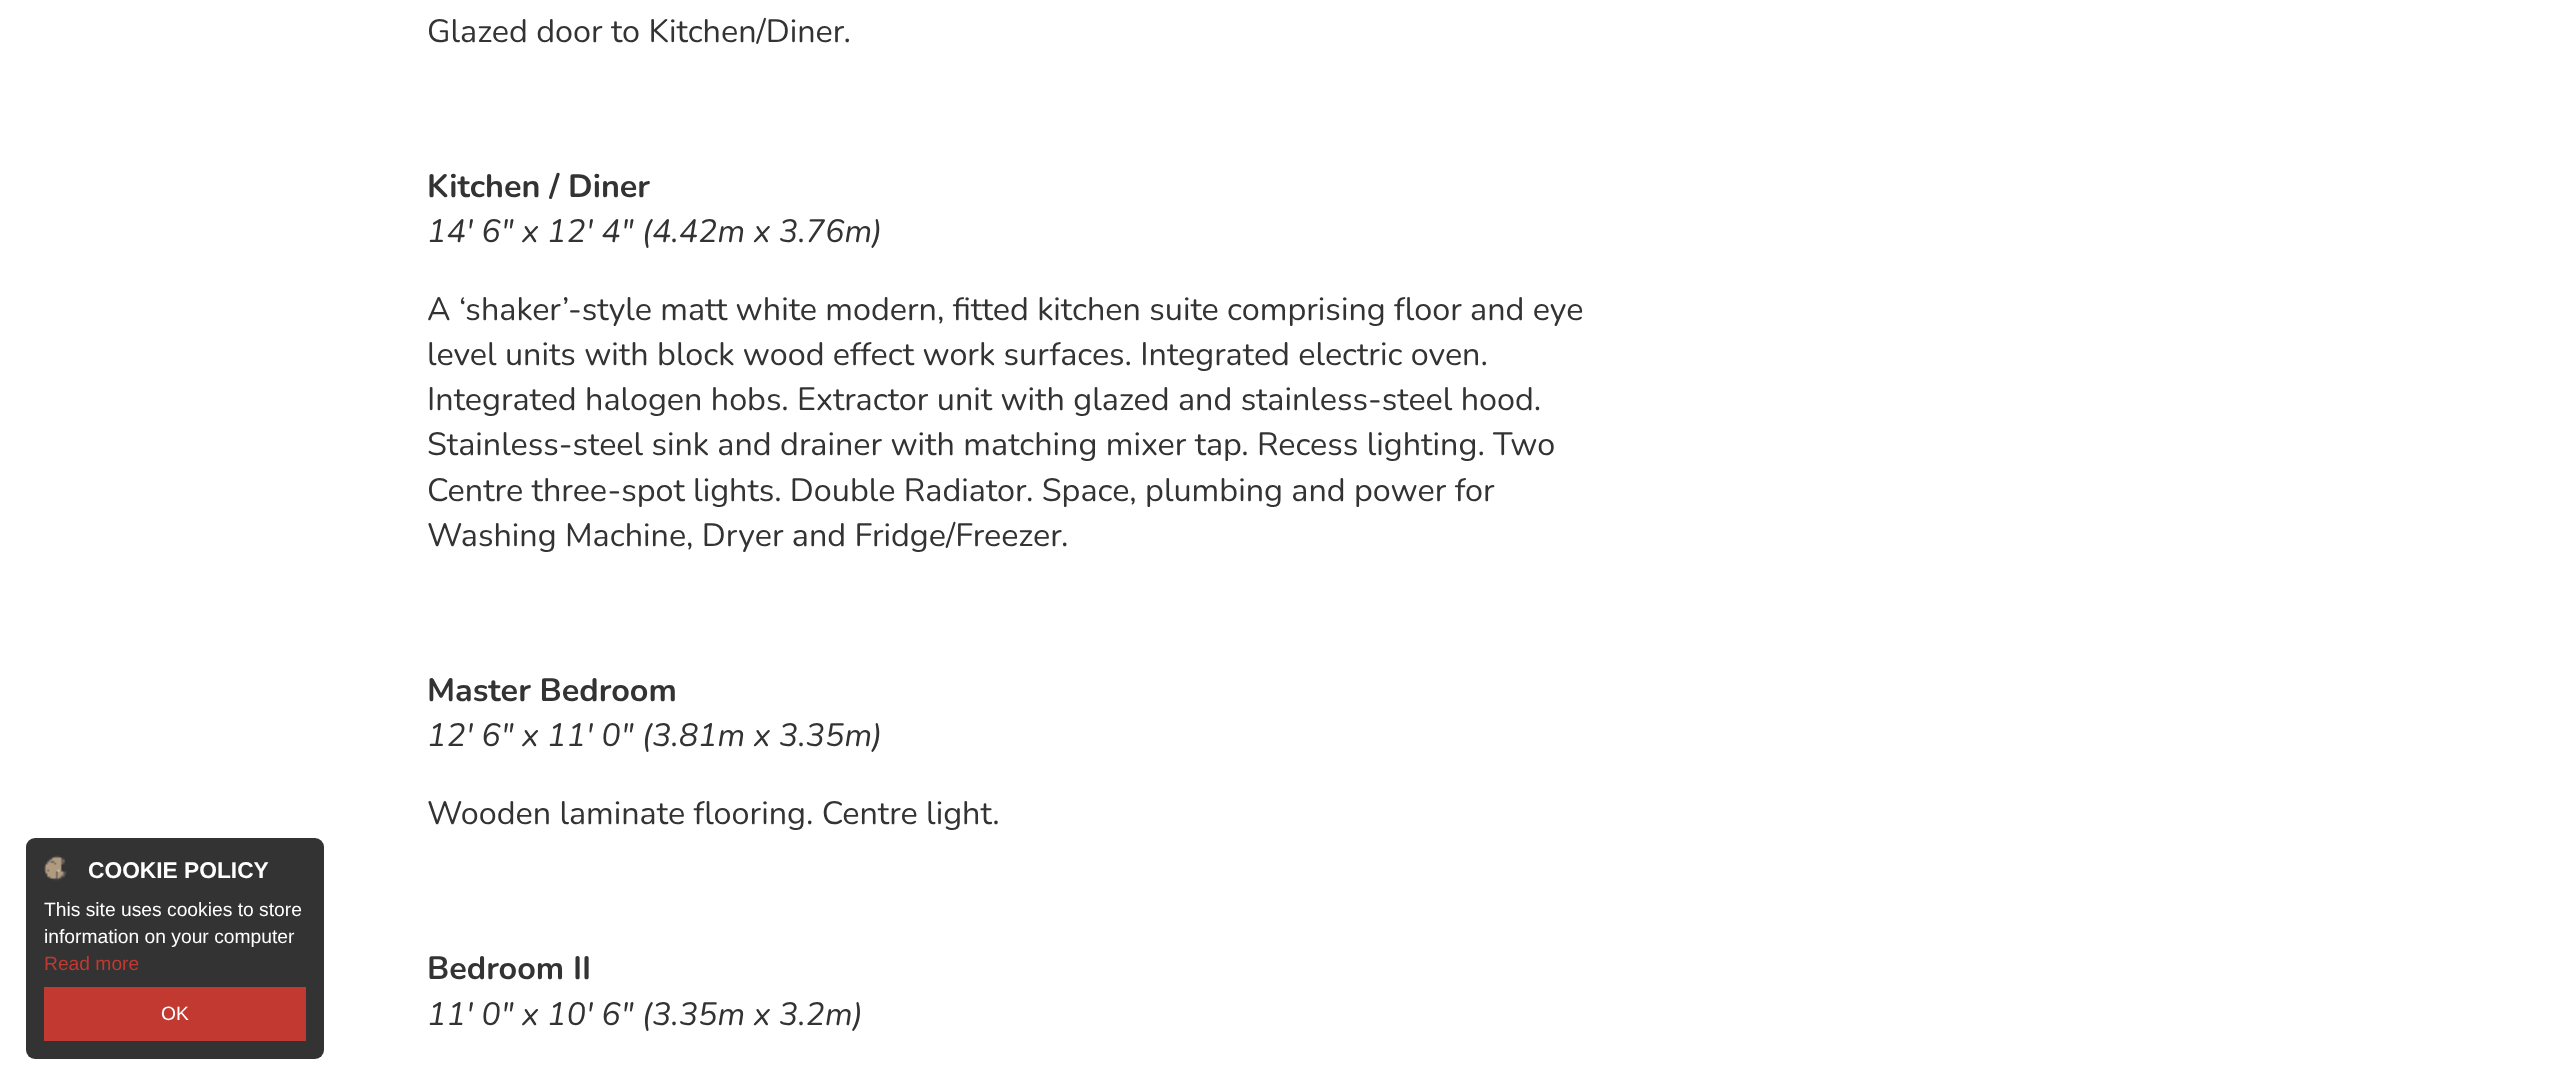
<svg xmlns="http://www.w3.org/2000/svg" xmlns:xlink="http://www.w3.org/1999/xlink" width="2567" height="1085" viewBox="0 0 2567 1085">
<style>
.cls-1{font:bold 22.75px Liberation Sans;fill:#ffffff}
.cls-2{font:19.25px Liberation Sans;fill:#ffffff}
.cls-3{font:19.25px Liberation Sans;fill:#c13931}
.cls-4{font:32.35px Nunito;fill:#333333}
.cls-5{font:bold 32.35px Nunito;fill:#333333}
.cls-6{font:italic 32.35px Nunito;fill:#333333}
</style>
<rect width="100%" height="100%" fill="#ffffff"/>
<rect fill="#333333" x="26" y="838" width="298" height="221" rx="9"/>
<image xlink:href="image0.png" x="44" y="855" width="23" height="26"/>
<rect fill="#c13931" x="44" y="987" width="262" height="54"/>
<text class="cls-1" x="88" y="878">COOKIE POLICY</text>
<text class="cls-2"><tspan x="44" y="916">This site uses cookies to store</tspan><tspan x="44" y="943">information on your computer</tspan></text>
<text class="cls-3" x="44" y="970">Read more</text>
<text class="cls-2" x="161" y="1020">OK</text>
<text class="cls-4" x="427" y="42">Glazed door to Kitchen/Diner.</text>
<text class="cls-5" x="427" y="197">Kitchen / Diner</text>
<text class="cls-6" x="427" y="242">14' 6" x 12' 4" (4.42m x 3.76m)</text>
<text class="cls-4"><tspan x="427" y="320">A ‘shaker’-style matt white modern, fitted kitchen suite comprising floor and eye</tspan><tspan x="427" y="365">level units with block wood effect work surfaces. Integrated electric oven.</tspan><tspan x="427" y="410">Integrated halogen hobs. Extractor unit with glazed and stainless-steel hood.</tspan><tspan x="427" y="455">Stainless-steel sink and drainer with matching mixer tap. Recess lighting. Two</tspan><tspan x="427" y="501">Centre three-spot lights. Double Radiator. Space, plumbing and power for</tspan><tspan x="427" y="546">Washing Machine, Dryer and Fridge/Freezer.</tspan></text>
<text class="cls-5" x="427" y="701">Master Bedroom</text>
<text class="cls-6" x="427" y="746">12' 6" x 11' 0" (3.81m x 3.35m)</text>
<text class="cls-4" x="427" y="824">Wooden laminate flooring. Centre light.</text>
<text class="cls-5" x="427" y="979">Bedroom II</text>
<text class="cls-6" x="427" y="1025">11' 0" x 10' 6" (3.35m x 3.2m)</text>
</svg>
